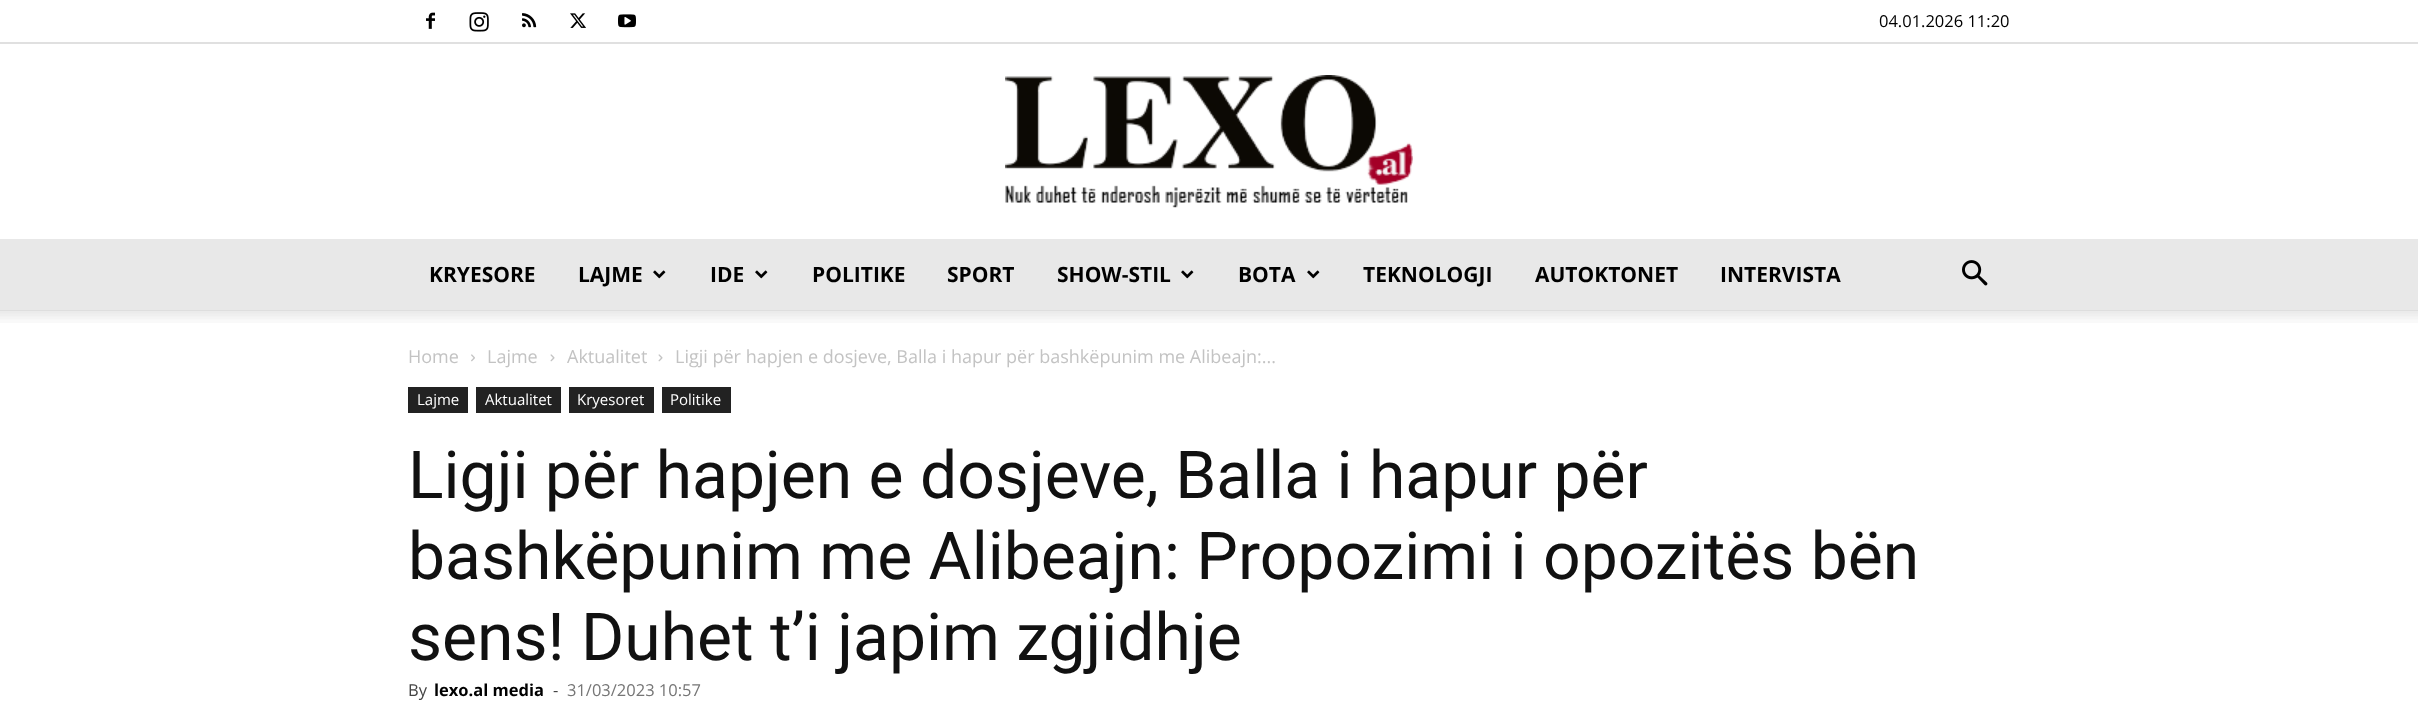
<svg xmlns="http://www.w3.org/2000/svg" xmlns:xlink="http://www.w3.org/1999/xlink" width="2418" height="713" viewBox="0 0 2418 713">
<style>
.cls-1{font:16.5px Open Sans;fill:#000000}
.cls-2{font:bold 21px Open Sans;fill:#000000}
.cls-3{font:18px Open Sans;fill:#c3c3c3}
.cls-4{font:15px Open Sans;fill:#ffffff}
.cls-5{font:66px Roboto;fill:#111111}
.cls-6{font:16.5px Open Sans;fill:#444444}
.cls-7{font:bold 16.5px Open Sans;fill:#000000}
.cls-8{font:16.5px Open Sans;fill:#767676}
</style>
<rect width="100%" height="100%" fill="#ffffff"/>
<rect fill="#e0e0e0" x="0" y="42" width="2418" height="2"/>
<image xlink:href="image0.png" x="426" y="12" width="9" height="17"/>
<image xlink:href="image1.png" x="469" y="12" width="20" height="20"/>
<image xlink:href="image2.png" x="522" y="13" width="15" height="15"/>
<image xlink:href="image3.png" x="570" y="13" width="16" height="15"/>
<image xlink:href="image4.png" x="618" y="14" width="18" height="14"/>
<image xlink:href="image5.png" x="1005" y="75" width="408" height="133"/>
<rect fill="#e8e8e8" x="0" y="239" width="2418" height="72"/>
<image xlink:href="image6.png" x="653" y="270" width="13" height="9"/>
<image xlink:href="image6.png" x="755" y="270" width="13" height="9"/>
<image xlink:href="image6.png" x="1181" y="270" width="13" height="9"/>
<image xlink:href="image6.png" x="1307" y="270" width="13" height="9"/>
<image xlink:href="image7.png" x="1962" y="260" width="26" height="26"/>
<image xlink:href="image8.png" x="0" y="310" width="2418" height="13"/>
<image xlink:href="image9.png" x="471" y="354" width="4" height="8"/>
<image xlink:href="image10.png" x="550" y="354" width="5" height="8"/>
<image xlink:href="image10.png" x="658" y="354" width="5" height="8"/>
<rect fill="#222222" x="408" y="387" width="60" height="26"/>
<rect fill="#222222" x="476" y="387" width="85" height="26"/>
<rect fill="#222222" x="569" y="387" width="85" height="26"/>
<rect fill="#222222" x="662" y="387" width="69" height="26"/>
<text class="cls-1" x="1879" y="27">04.01.2026 11:20</text>
<text class="cls-2" x="429" y="282">KRYESORE</text>
<text class="cls-2" x="578" y="282">LAJME</text>
<text class="cls-2" x="710" y="282">IDE</text>
<text class="cls-2" x="812" y="282">POLITIKE</text>
<text class="cls-2" x="947" y="282">SPORT</text>
<text class="cls-2" x="1057" y="282">SHOW-STIL</text>
<text class="cls-2" x="1238" y="282">BOTA</text>
<text class="cls-2" x="1363" y="282">TEKNOLOGJI</text>
<text class="cls-2" x="1535" y="282">AUTOKTONET</text>
<text class="cls-2" x="1720" y="282">INTERVISTA</text>
<text class="cls-3" x="408" y="363">Home</text>
<text class="cls-3" x="487" y="363">Lajme</text>
<text class="cls-3" x="567" y="363">Aktualitet</text>
<text class="cls-3" x="675" y="363">Ligji për hapjen e dosjeve, Balla i hapur për bashkëpunim me Alibeajn:...</text>
<text class="cls-4" x="417" y="405">Lajme</text>
<text class="cls-4" x="485" y="405">Aktualitet</text>
<text class="cls-4" x="577" y="405">Kryesoret</text>
<text class="cls-4" x="670" y="405">Politike</text>
<text class="cls-5"><tspan x="408" y="498">Ligji për hapjen e dosjeve, Balla i hapur për</tspan><tspan x="408" y="579">bashkëpunim me Alibeajn: Propozimi i opozitës bën</tspan><tspan x="408" y="660">sens! Duhet t’i japim zgjidhje</tspan></text>
<text class="cls-6" x="408" y="696">By</text>
<text class="cls-7" x="434" y="696">lexo.al media</text>
<text class="cls-6" x="553" y="696">-</text>
<text class="cls-8" x="567" y="696">31/03/2023 10:57</text>
</svg>
